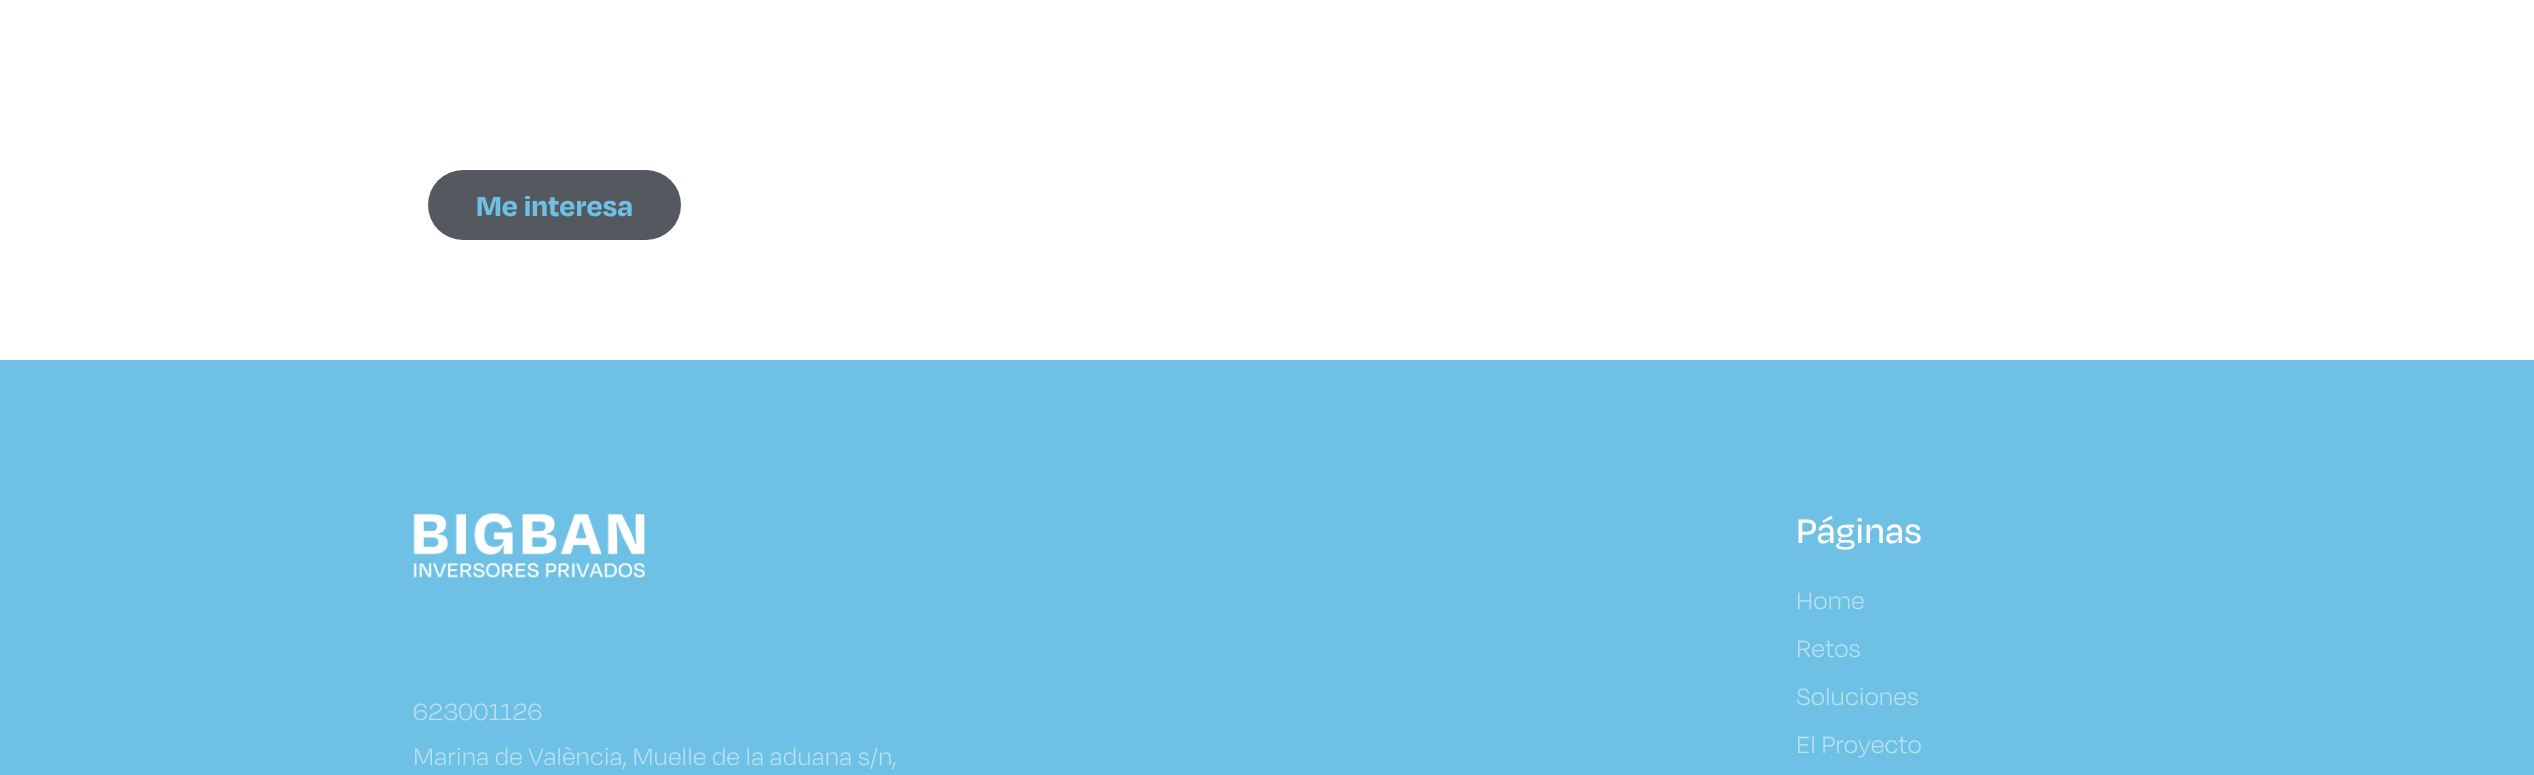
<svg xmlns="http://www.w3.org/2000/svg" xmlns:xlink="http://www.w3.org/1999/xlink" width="2534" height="775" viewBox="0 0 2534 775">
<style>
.cls-1{font:bold 31.5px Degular;fill:#6ec1e4}
.cls-2{font:300 27px Degular;fill:#bbe2f2}
.cls-3{font:500 39px Degular;fill:#ffffff}
</style>
<rect width="100%" height="100%" fill="#ffffff"/>
<rect fill="#54595f" x="428" y="170" width="253" height="70" rx="35"/>
<rect fill="#6ec1e4" x="0" y="360" width="2534" height="415"/>
<image xlink:href="image0.png" x="413" y="513" width="232" height="65"/>
<text class="cls-1" x="476" y="216">Me interesa</text>
<text class="cls-2"><tspan x="413" y="720">623001126</tspan><tspan x="413" y="765">Marina de València, Muelle de la aduana s/n,</tspan></text>
<text class="cls-3" x="1796" y="543">Páginas</text>
<text class="cls-2"><tspan x="1796" y="609">Home</tspan><tspan x="1796" y="657">Retos</tspan><tspan x="1796" y="705">Soluciones</tspan><tspan x="1796" y="753">El Proyecto</tspan></text>
</svg>
